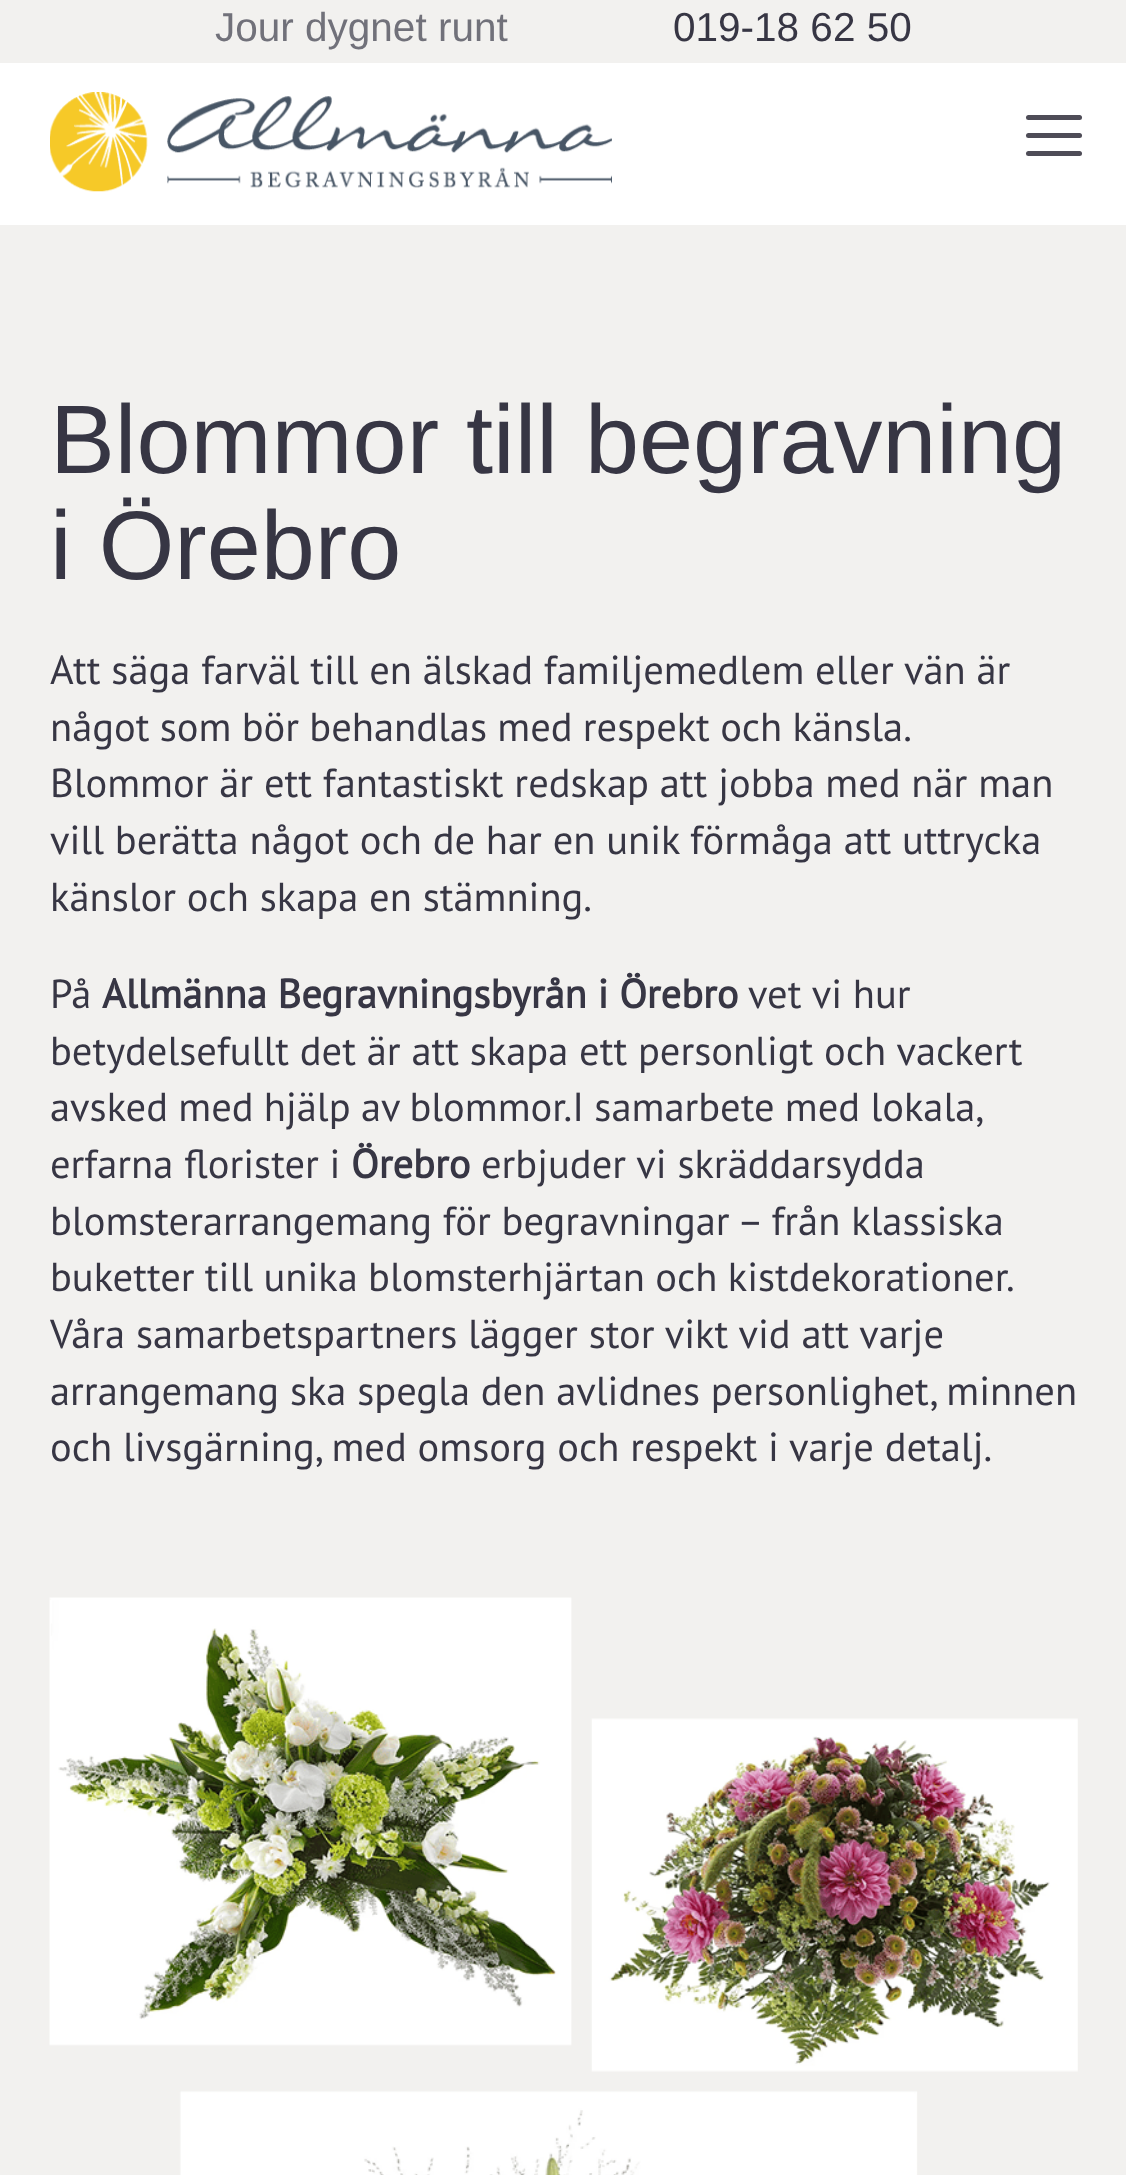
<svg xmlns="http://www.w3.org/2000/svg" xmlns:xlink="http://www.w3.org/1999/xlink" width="1126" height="2175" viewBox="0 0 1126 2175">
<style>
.cls-1{font:40.5px Liberation Sans;fill:#71717a}
.cls-2{font:40.5px Liberation Sans;fill:#373644}
.cls-3{font:97.25px Liberation Sans;fill:#373644}
.cls-4{font:40.5px PT Sans;fill:#373644}
.cls-5{font:bold 40.5px PT Sans;fill:#373644}
</style>
<rect width="100%" height="100%" fill="#ffffff"/>
<rect fill="#f2f1ef" x="0" y="0" width="1126" height="63"/>
<image xlink:href="image0.png" x="50" y="92" width="562" height="100"/>
<rect fill="#4e4c57" x="1026" y="151" width="56" height="5" rx="2.5"/>
<rect fill="#4e4c57" x="1026" y="115" width="56" height="5" rx="2.5"/>
<rect fill="#4e4c57" x="1026" y="133" width="56" height="5" rx="2.5"/>
<rect fill="#f2f1ef" x="0" y="225" width="1126" height="1950"/>
<image xlink:href="image1.png" x="49" y="1597" width="1029" height="578"/>
<text class="cls-1" x="215" y="41">Jour dygnet runt</text>
<text class="cls-2" x="673" y="41">019-18 62 50</text>
<text class="cls-3"><tspan x="50" y="473">Blommor till begravning</tspan><tspan x="50" y="579">i Örebro</tspan></text>
<text class="cls-4"><tspan x="50" y="684">Att säga farväl till en älskad familjemedlem eller vän är</tspan><tspan x="50" y="741" word-spacing="-0.5">något som bör behandlas med respekt och känsla.</tspan><tspan x="50" y="797">Blommor är ett fantastiskt redskap att jobba med när man</tspan><tspan x="50" y="854">vill berätta något och de har en unik förmåga att uttrycka</tspan><tspan x="50" y="911">känslor och skapa en stämning.</tspan></text>
<text class="cls-4" x="50" y="1008">På</text>
<text class="cls-5" x="102" y="1008">Allmänna Begravningsbyrån i Örebro</text>
<text class="cls-4" x="748" y="1008">vet vi hur</text>
<text class="cls-4"><tspan x="50" y="1065">betydelsefullt det är att skapa ett personligt och vackert</tspan><tspan x="50" y="1121" word-spacing="-0.5">avsked med hjälp av blommor.I samarbete med lokala,</tspan><tspan x="50" y="1178">erfarna florister i</tspan></text>
<text class="cls-5" x="351" y="1178">Örebro</text>
<text class="cls-4" x="481" y="1178">erbjuder vi skräddarsydda</text>
<text class="cls-4"><tspan x="50" y="1235">blomsterarrangemang för begravningar – från klassiska</tspan><tspan x="50" y="1291" word-spacing="-0.5">buketter till unika blomsterhjärtan och kistdekorationer.</tspan><tspan x="50" y="1348">Våra samarbetspartners lägger stor vikt vid att varje</tspan><tspan x="50" y="1405">arrangemang ska spegla den avlidnes personlighet, minnen</tspan><tspan x="50" y="1461">och livsgärning, med omsorg och respekt i varje detalj.</tspan></text>
</svg>
